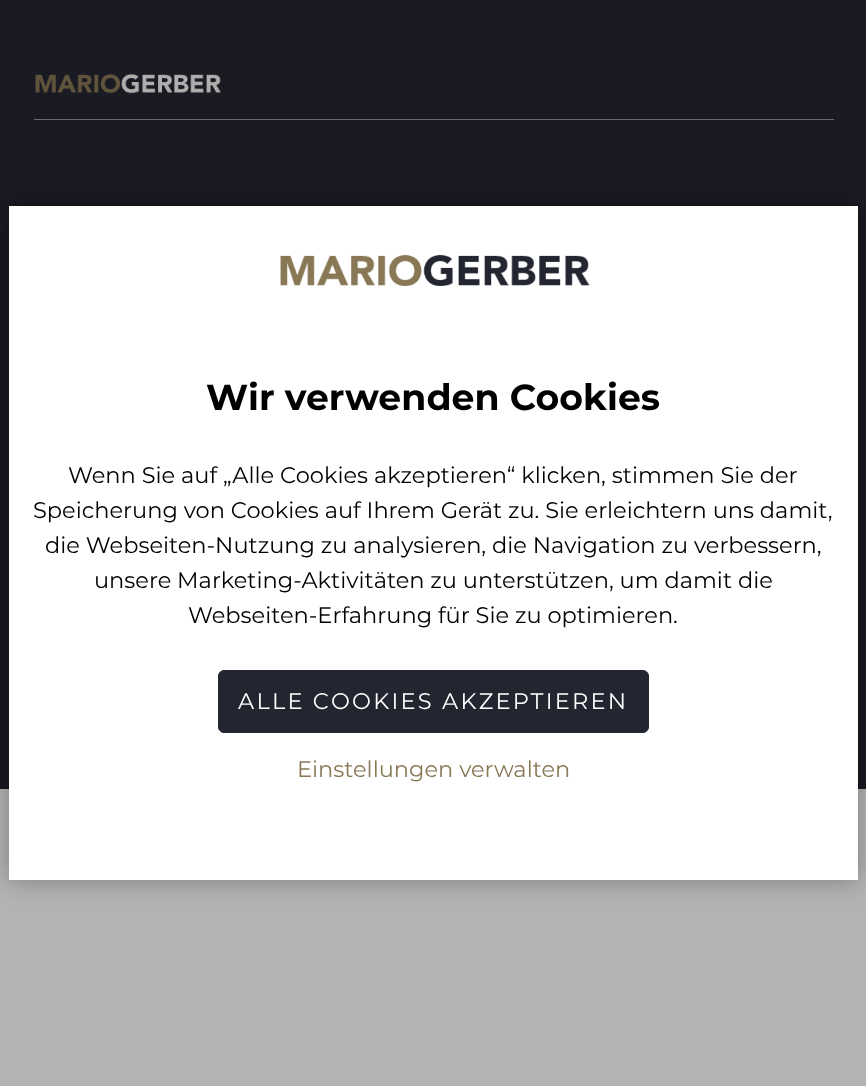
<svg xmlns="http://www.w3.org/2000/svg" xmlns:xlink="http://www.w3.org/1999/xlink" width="866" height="1086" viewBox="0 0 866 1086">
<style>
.cls-1{font:100 36.25px Montserrat;fill:#000000}
.cls-2{font:100 22.5px 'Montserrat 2';fill:#000000}
.cls-3{font:100 22.5px 'Montserrat 2';letter-spacing:2.25px;fill:#ffffff}
.cls-4{font:100 22.5px 'Montserrat 2';fill:#897856}
</style>
<rect width="100%" height="100%" fill="#b3b3b3"/>
<rect fill="#191a22" x="0" y="0" width="866" height="789"/>
<image xlink:href="image0.png" x="35" y="74" width="186" height="20"/>
<rect fill="#6a6a6a" x="34" y="119" width="800" height="1"/>
<rect fill="#000000" fill-opacity="0.3" filter="blur(12.5px)" x="9" y="206" width="849" height="674"/>
<rect fill="#ffffff" x="9" y="206" width="849" height="674"/>
<image xlink:href="image1.png" x="280" y="254" width="310" height="32"/>
<rect fill="#232531" stroke="#232531" x="218.5" y="670.5" width="430" height="62" rx="5.5"/>
<text class="cls-1" x="206" y="410">Wir verwenden Cookies</text>
<text class="cls-2" x="68" y="483">Wenn Sie auf „Alle Cookies akzeptieren“ klicken, stimmen Sie der</text>
<text class="cls-2" x="33" y="518">Speicherung von Cookies auf Ihrem Gerät zu. Sie erleichtern uns damit,</text>
<text class="cls-2" x="45" y="553">die Webseiten-Nutzung zu analysieren, die Navigation zu verbessern,</text>
<text class="cls-2" x="94" y="588">unsere Marketing-Aktivitäten zu unterstützen, um damit die</text>
<text class="cls-2" x="188" y="623">Webseiten-Erfahrung für Sie zu optimieren.</text>
<text class="cls-3" x="238" y="709">ALLE COOKIES AKZEPTIEREN</text>
<text class="cls-4" x="297" y="777">Einstellungen verwalten</text>
</svg>
